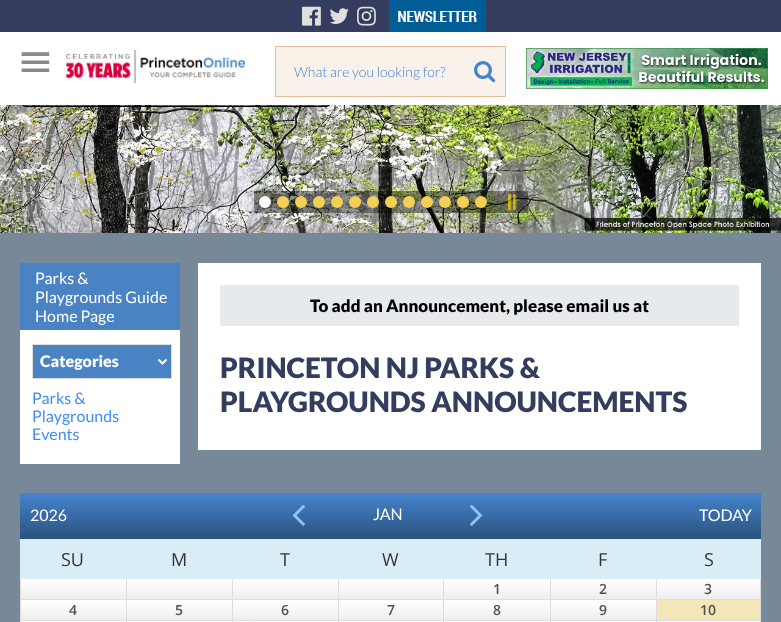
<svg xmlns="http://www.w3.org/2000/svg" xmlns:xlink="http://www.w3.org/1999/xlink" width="781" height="622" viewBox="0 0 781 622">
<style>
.cls-1{font:44px DejaVu Sans;fill:#898989}
.cls-2{font:300 14px Lato;fill:#4484ce}
.cls-3{font:16px Lato;fill:#ffffff}
.cls-4{font:900 16px Lato;fill:#ffffff}
.cls-5{font:16px Lato;fill:#428df2}
.cls-6{font:900 17px Lato;fill:#000000}
.cls-7{font:900 28px Lato;fill:#343d5e}
.cls-8{font:18px Open Sans;fill:#333333}
.cls-9{font:600 14px Open Sans;fill:#525252}
</style>
<defs>
<linearGradient id="g1" gradientUnits="userSpaceOnUse" x1="391" y1="493" x2="391" y2="539"><stop offset="0" stop-color="#4484ce"/><stop offset="1" stop-color="#2c527e"/></linearGradient>
<linearGradient id="g2" gradientUnits="userSpaceOnUse" x1="74" y1="579" x2="74" y2="599"><stop offset="0" stop-color="#ffffff"/><stop offset="1" stop-color="#eeeeee"/></linearGradient>
<linearGradient id="g3" gradientUnits="userSpaceOnUse" x1="180" y1="579" x2="180" y2="599"><stop offset="0" stop-color="#ffffff"/><stop offset="1" stop-color="#eeeeee"/></linearGradient>
<linearGradient id="g4" gradientUnits="userSpaceOnUse" x1="286" y1="579" x2="286" y2="599"><stop offset="0" stop-color="#ffffff"/><stop offset="1" stop-color="#eeeeee"/></linearGradient>
<linearGradient id="g5" gradientUnits="userSpaceOnUse" x1="391" y1="579" x2="391" y2="599"><stop offset="0" stop-color="#ffffff"/><stop offset="1" stop-color="#eeeeee"/></linearGradient>
<linearGradient id="g6" gradientUnits="userSpaceOnUse" x1="497" y1="579" x2="497" y2="599"><stop offset="0" stop-color="#ffffff"/><stop offset="1" stop-color="#eeeeee"/></linearGradient>
<linearGradient id="g7" gradientUnits="userSpaceOnUse" x1="604" y1="579" x2="604" y2="599"><stop offset="0" stop-color="#ffffff"/><stop offset="1" stop-color="#eeeeee"/></linearGradient>
<linearGradient id="g8" gradientUnits="userSpaceOnUse" x1="709" y1="579" x2="709" y2="599"><stop offset="0" stop-color="#ffffff"/><stop offset="1" stop-color="#eeeeee"/></linearGradient>
<linearGradient id="g9" gradientUnits="userSpaceOnUse" x1="74" y1="600" x2="74" y2="620"><stop offset="0" stop-color="#ffffff"/><stop offset="1" stop-color="#eeeeee"/></linearGradient>
<linearGradient id="g10" gradientUnits="userSpaceOnUse" x1="180" y1="600" x2="180" y2="620"><stop offset="0" stop-color="#ffffff"/><stop offset="1" stop-color="#eeeeee"/></linearGradient>
<linearGradient id="g11" gradientUnits="userSpaceOnUse" x1="286" y1="600" x2="286" y2="620"><stop offset="0" stop-color="#ffffff"/><stop offset="1" stop-color="#eeeeee"/></linearGradient>
<linearGradient id="g12" gradientUnits="userSpaceOnUse" x1="391" y1="600" x2="391" y2="620"><stop offset="0" stop-color="#ffffff"/><stop offset="1" stop-color="#eeeeee"/></linearGradient>
<linearGradient id="g13" gradientUnits="userSpaceOnUse" x1="497" y1="600" x2="497" y2="620"><stop offset="0" stop-color="#ffffff"/><stop offset="1" stop-color="#eeeeee"/></linearGradient>
<linearGradient id="g14" gradientUnits="userSpaceOnUse" x1="604" y1="600" x2="604" y2="620"><stop offset="0" stop-color="#ffffff"/><stop offset="1" stop-color="#eeeeee"/></linearGradient>
<linearGradient id="g15" gradientUnits="userSpaceOnUse" x1="74" y1="621" x2="74" y2="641"><stop offset="0" stop-color="#ffffff"/><stop offset="1" stop-color="#eeeeee"/></linearGradient>
<linearGradient id="g16" gradientUnits="userSpaceOnUse" x1="180" y1="621" x2="180" y2="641"><stop offset="0" stop-color="#ffffff"/><stop offset="1" stop-color="#eeeeee"/></linearGradient>
<linearGradient id="g17" gradientUnits="userSpaceOnUse" x1="286" y1="621" x2="286" y2="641"><stop offset="0" stop-color="#ffffff"/><stop offset="1" stop-color="#eeeeee"/></linearGradient>
<linearGradient id="g18" gradientUnits="userSpaceOnUse" x1="391" y1="621" x2="391" y2="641"><stop offset="0" stop-color="#ffffff"/><stop offset="1" stop-color="#eeeeee"/></linearGradient>
<linearGradient id="g19" gradientUnits="userSpaceOnUse" x1="497" y1="621" x2="497" y2="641"><stop offset="0" stop-color="#ffffff"/><stop offset="1" stop-color="#eeeeee"/></linearGradient>
<linearGradient id="g20" gradientUnits="userSpaceOnUse" x1="604" y1="621" x2="604" y2="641"><stop offset="0" stop-color="#ffffff"/><stop offset="1" stop-color="#eeeeee"/></linearGradient>
<linearGradient id="g21" gradientUnits="userSpaceOnUse" x1="709" y1="621" x2="709" y2="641"><stop offset="0" stop-color="#ffffff"/><stop offset="1" stop-color="#eeeeee"/></linearGradient>
</defs>
<rect width="100%" height="100%" fill="#778899"/>
<image xlink:href="image0.png" x="0" y="105" width="781" height="128"/>
<rect fill="#000000" fill-opacity="0.5" stroke="#000000" x="20.5" y="17.5" width="311" height="89" rx="5.5"/>
<rect fill="#000000" fill-opacity="0.4" x="254" y="191" width="274" height="22"/>
<circle fill="#ffffff" cx="265" cy="202" r="6"/>
<circle fill="#f3d055" cx="283" cy="202" r="6"/>
<circle fill="#f3d055" cx="301" cy="202" r="6"/>
<circle fill="#f3d055" cx="319" cy="202" r="6"/>
<circle fill="#f3d055" cx="337" cy="202" r="6"/>
<circle fill="#f3d055" cx="355" cy="202" r="6"/>
<circle fill="#f3d055" cx="373" cy="202" r="6"/>
<circle fill="#f3d055" cx="391" cy="202" r="6"/>
<circle fill="#f3d055" cx="409" cy="202" r="6"/>
<circle fill="#f3d055" cx="427" cy="202" r="6"/>
<circle fill="#f3d055" cx="445" cy="202" r="6"/>
<circle fill="#f3d055" cx="463" cy="202" r="6"/>
<circle fill="#f3d055" cx="481" cy="202" r="6"/>
<image xlink:href="image1.png" x="508" y="193" width="9" height="18"/>
<rect fill="#ffffff" x="0" y="32" width="781" height="73"/>
<rect fill="#343d5e" x="0" y="0" width="781" height="32"/>
<image xlink:href="image2.png" x="302" y="6" width="19" height="20"/>
<image xlink:href="image3.png" x="329" y="8" width="20" height="16"/>
<image xlink:href="image4.png" x="357" y="6" width="19" height="20"/>
<image xlink:href="image5.png" x="389" y="0" width="97" height="32"/>
<image xlink:href="image6.png" x="66" y="50" width="179" height="33"/>
<rect fill="#f9f2eb" stroke="#e6bd94" x="275.5" y="46.5" width="230" height="50"/>
<image xlink:href="image7.png" x="474" y="61" width="22" height="22"/>
<image xlink:href="image8.png" x="526" y="48" width="242" height="41"/>
<rect fill="#4983c3" x="20" y="263" width="160" height="67"/>
<rect fill="#ffffff" x="20" y="330" width="160" height="134"/>
<rect fill="#4983c4" stroke="#dddddd" x="32.5" y="344.5" width="139" height="34"/>
<path fill="none" stroke="#ffffff" stroke-width="2" d="M158.5 359.5L162.5 363.5L166.5 359.5"/>
<rect fill="#ffffff" x="198" y="263" width="563" height="187"/>
<rect fill="#e7eaed" x="220" y="285" width="519" height="41"/>
<rect fill="url(#g1)" x="20" y="493" width="741" height="46"/>
<image xlink:href="image9.png" x="292" y="504" width="13" height="22"/>
<image xlink:href="image10.png" x="470" y="504" width="13" height="22"/>
<rect fill="#d9edf7" x="20" y="539" width="741" height="40"/>
<rect fill="url(#g2)" x="21" y="579" width="105" height="20"/>
<rect fill="#dddddd" x="20" y="599" width="636" height="1"/>
<rect fill="#dddddd" x="20" y="579" width="1" height="21"/>
<rect fill="url(#g3)" x="127" y="579" width="105" height="20"/>
<rect fill="#dddddd" x="126" y="579" width="1" height="21"/>
<rect fill="url(#g4)" x="233" y="579" width="105" height="20"/>
<rect fill="#dddddd" x="232" y="579" width="1" height="21"/>
<rect fill="url(#g5)" x="339" y="579" width="104" height="20"/>
<rect fill="#dddddd" x="338" y="579" width="1" height="21"/>
<rect fill="url(#g6)" x="444" y="579" width="106" height="20"/>
<rect fill="#dddddd" x="443" y="579" width="1" height="21"/>
<rect fill="url(#g7)" x="551" y="579" width="105" height="20"/>
<rect fill="#dddddd" x="550" y="579" width="1" height="21"/>
<rect fill="url(#g8)" x="657" y="579" width="103" height="20"/>
<rect fill="#dddddd" x="760" y="579" width="1" height="42"/>
<rect fill="#dddddd" x="656" y="599" width="105" height="1"/>
<rect fill="#dddddd" x="656" y="579" width="1" height="21"/>
<rect fill="url(#g9)" x="21" y="600" width="105" height="20"/>
<rect fill="#dddddd" x="20" y="620" width="741" height="1"/>
<rect fill="#dddddd" x="20" y="600" width="1" height="21"/>
<rect fill="url(#g10)" x="127" y="600" width="105" height="20"/>
<rect fill="#dddddd" x="126" y="600" width="1" height="21"/>
<rect fill="url(#g11)" x="233" y="600" width="105" height="20"/>
<rect fill="#dddddd" x="232" y="600" width="1" height="21"/>
<rect fill="url(#g12)" x="339" y="600" width="104" height="20"/>
<rect fill="#dddddd" x="338" y="600" width="1" height="21"/>
<rect fill="url(#g13)" x="444" y="600" width="106" height="20"/>
<rect fill="#dddddd" x="443" y="600" width="1" height="21"/>
<rect fill="url(#g14)" x="551" y="600" width="105" height="20"/>
<rect fill="#dddddd" x="550" y="600" width="1" height="21"/>
<rect fill="#dddddd" x="656" y="600" width="1" height="21"/>
<rect fill="#f3e7b7" x="657" y="600" width="103" height="20"/>
<rect fill="url(#g15)" x="20" y="621" width="106" height="1"/>
<rect fill="#dddddd" x="20" y="621" width="1" height="1"/>
<rect fill="url(#g16)" x="126" y="621" width="106" height="1"/>
<rect fill="#dddddd" x="126" y="621" width="1" height="1"/>
<rect fill="url(#g17)" x="232" y="621" width="106" height="1"/>
<rect fill="#dddddd" x="232" y="621" width="1" height="1"/>
<rect fill="url(#g18)" x="338" y="621" width="105" height="1"/>
<rect fill="#dddddd" x="338" y="621" width="1" height="1"/>
<rect fill="url(#g19)" x="443" y="621" width="107" height="1"/>
<rect fill="#dddddd" x="443" y="621" width="1" height="1"/>
<rect fill="url(#g20)" x="550" y="621" width="106" height="1"/>
<rect fill="#dddddd" x="550" y="621" width="1" height="1"/>
<rect fill="url(#g21)" x="656" y="621" width="105" height="1"/>
<rect fill="#dddddd" x="760" y="621" width="1" height="1"/>
<rect fill="#dddddd" x="656" y="621" width="1" height="1"/>
<text class="cls-1" x="17" y="76">≡</text>
<text class="cls-2" x="294" y="77">What are you looking for?</text>
<text class="cls-3"><tspan x="35" y="284">Parks &amp;</tspan><tspan x="35" y="303">Playgrounds Guide</tspan><tspan x="35" y="322">Home Page</tspan></text>
<text class="cls-4" x="40" y="367">Categories</text>
<text class="cls-5"><tspan x="32" y="404">Parks &amp;</tspan><tspan x="32" y="422">Playgrounds</tspan><tspan x="32" y="440">Events</tspan></text>
<text class="cls-6" x="310" y="312">To add an Announcement, please email us at</text>
<text class="cls-7"><tspan x="220" y="378">PRINCETON NJ PARKS &amp;</tspan><tspan x="220" y="412">PLAYGROUNDS ANNOUNCEMENTS</tspan></text>
<text class="cls-3" x="30" y="521">2026</text>
<text class="cls-3" x="373" y="520">JAN</text>
<text class="cls-3" x="699" y="521">TODAY</text>
<text class="cls-8" x="61" y="566">SU</text>
<text class="cls-8" x="171" y="566">M</text>
<text class="cls-8" x="280" y="566">T</text>
<text class="cls-8" x="382" y="566">W</text>
<text class="cls-8" x="485" y="566">TH</text>
<text class="cls-8" x="598" y="566">F</text>
<text class="cls-8" x="704" y="566">S</text>
<text class="cls-9" x="493" y="594">1</text>
<text class="cls-9" x="599" y="594">2</text>
<text class="cls-9" x="704" y="594">3</text>
<text class="cls-9" x="69" y="615">4</text>
<text class="cls-9" x="175" y="615">5</text>
<text class="cls-9" x="281" y="615">6</text>
<text class="cls-9" x="387" y="615">7</text>
<text class="cls-9" x="493" y="615">8</text>
<text class="cls-9" x="599" y="615">9</text>
<text class="cls-9" x="700" y="615">10</text>
</svg>
